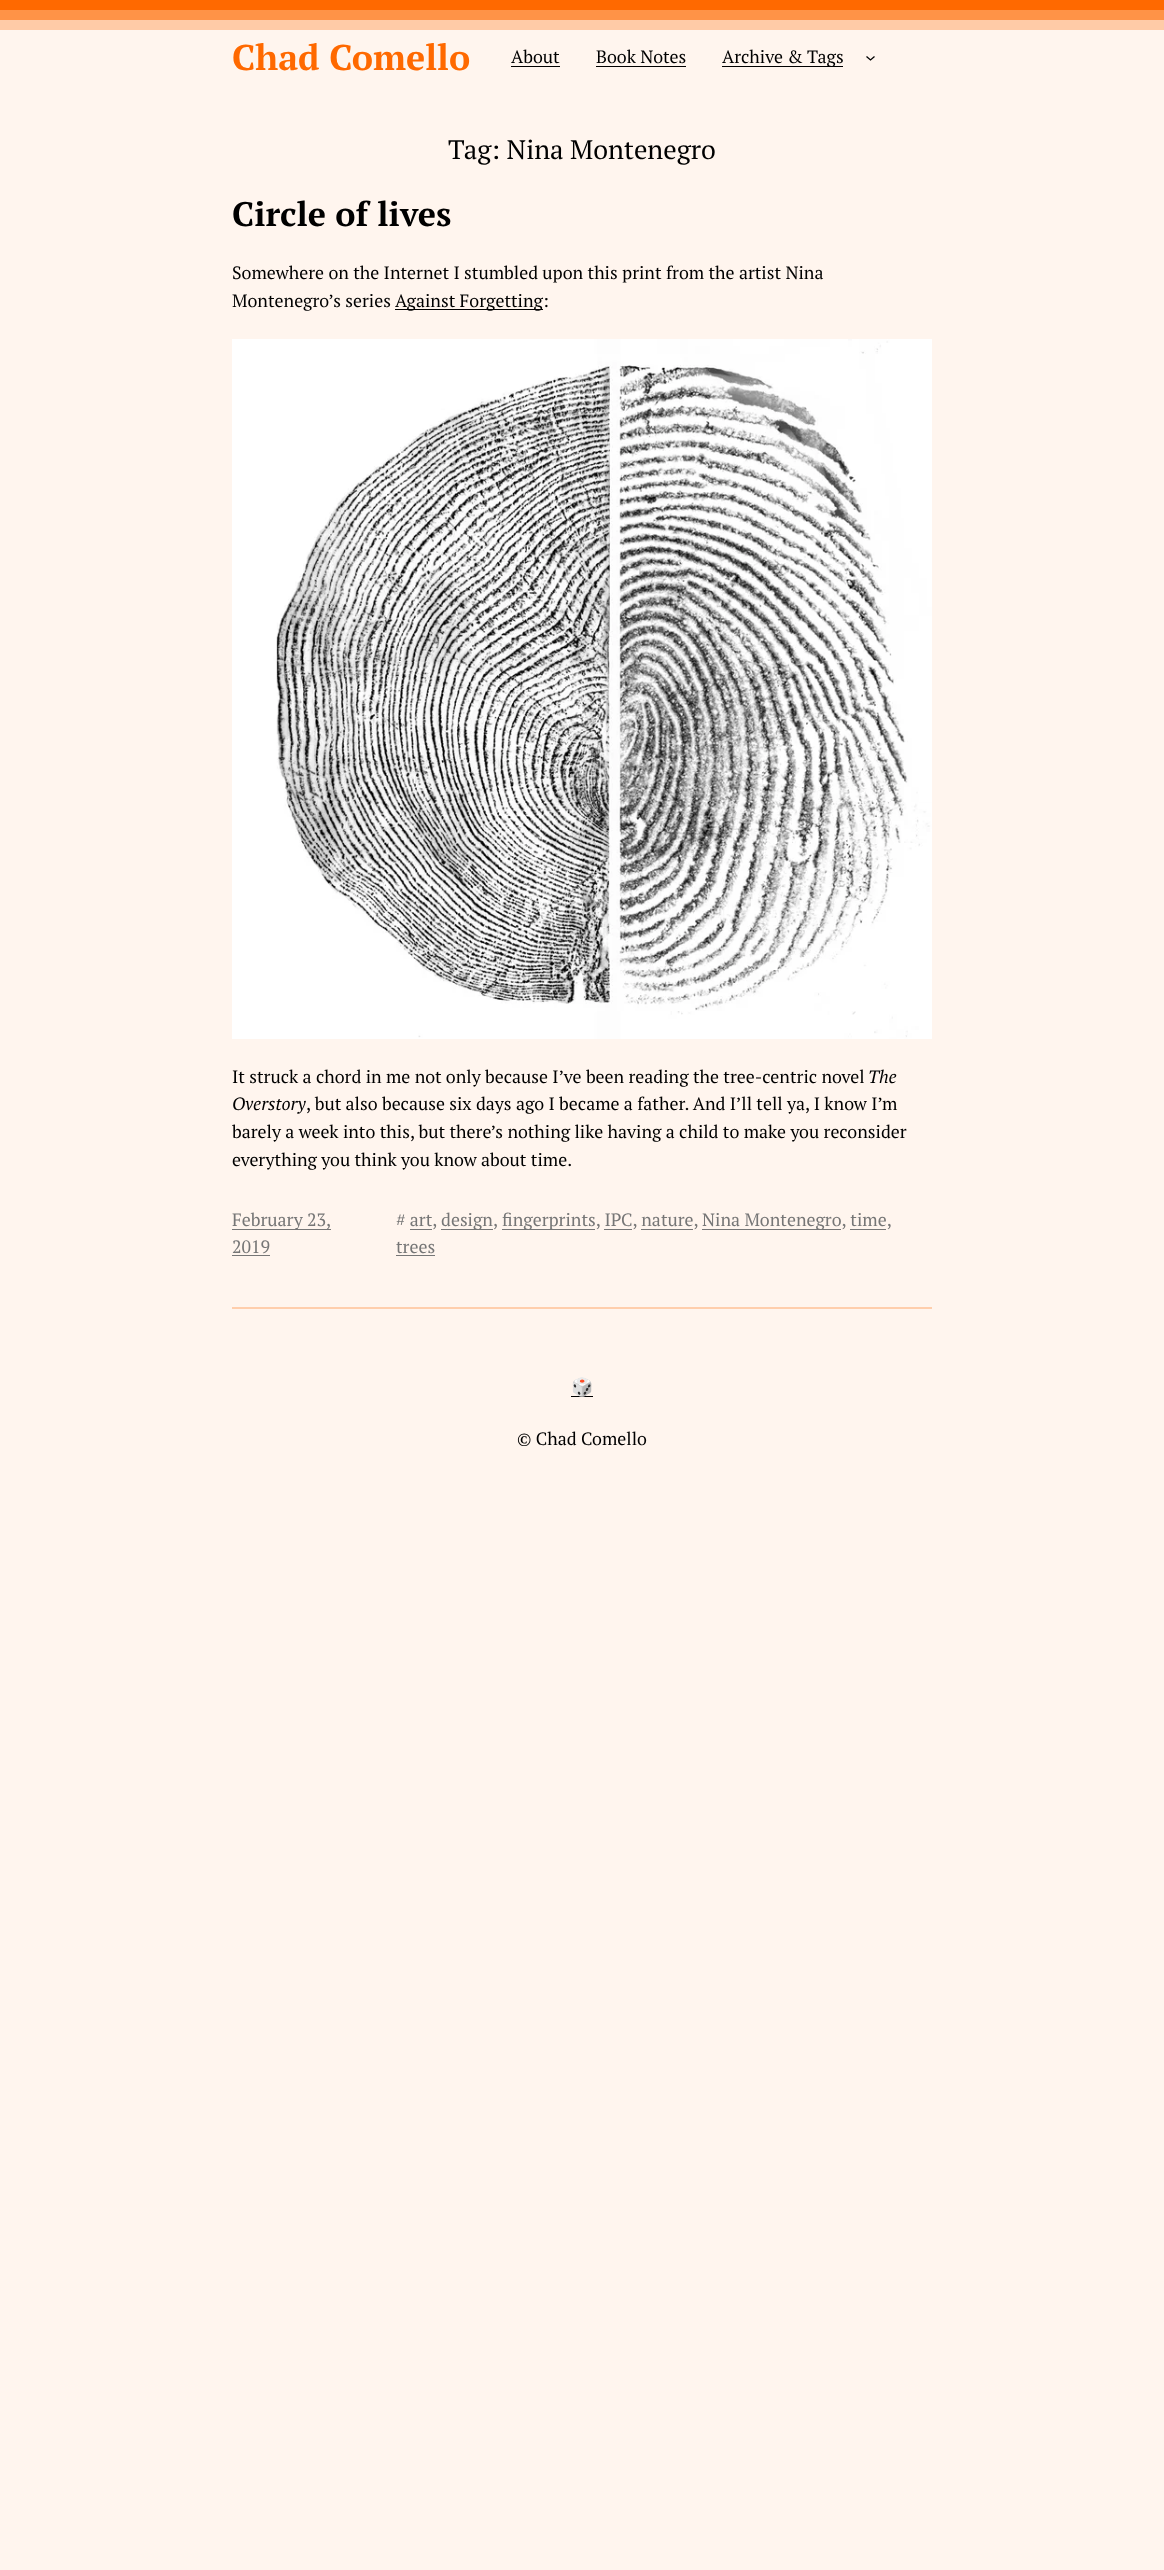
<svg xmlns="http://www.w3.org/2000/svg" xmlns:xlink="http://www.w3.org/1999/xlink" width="1164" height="2570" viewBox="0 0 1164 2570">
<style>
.cls-1{font:bold 35.75px PT Serif;fill:#ff6900}
.cls-2{font:17.85px PT Serif;fill:#000000}
.cls-3{font:26.75px PT Serif;fill:#000000}
.cls-4{font:bold 34px PT Serif;fill:#000000}
.cls-5{font:italic 17.85px PT Serif;fill:#000000}
.cls-6{font:17.85px PT Serif;fill:#767676}
.cls-7{font:17.85px Noto Color Emoji;fill:#000000}
</style>
<rect width="100%" height="100%" fill="#fff5ee"/>
<rect fill="#ff6900" x="0" y="0" width="1164" height="10"/>
<rect fill="#ff9347" x="0" y="10" width="1164" height="10"/>
<rect fill="#ffcba7" x="0" y="20" width="1164" height="10"/>
<rect fill="#000000" x="511" y="66" width="49" height="1"/>
<rect fill="#000000" x="596" y="66" width="90" height="1"/>
<rect fill="#000000" x="722" y="66" width="121" height="1"/>
<path fill="none" stroke="#000000" stroke-width="1.3" d="M866.5 56.5L870.5 60L874.5 56.5"/>
<rect fill="#000000" x="395" y="309" width="148" height="1"/>
<image xlink:href="image0.png" x="232" y="339" width="700" height="700"/>
<rect fill="#767676" x="232" y="1229" width="99" height="1"/>
<rect fill="#767676" x="232" y="1255" width="38" height="1"/>
<rect fill="#767676" x="441" y="1229" width="52" height="1"/>
<rect fill="#767676" x="502" y="1229" width="93" height="1"/>
<rect fill="#767676" x="702" y="1229" width="139" height="1"/>
<rect fill="#767676" x="410" y="1229" width="22" height="1"/>
<rect fill="#767676" x="604" y="1229" width="28" height="1"/>
<rect fill="#767676" x="641" y="1229" width="52" height="1"/>
<rect fill="#767676" x="850" y="1229" width="36" height="1"/>
<rect fill="#767676" x="396" y="1255" width="39" height="1"/>
<rect fill="#ffceac" x="232" y="1307" width="700" height="2"/>
<rect fill="#000000" x="571" y="1396" width="22" height="1"/>
<text class="cls-1" x="232" y="70">Chad Comello</text>
<text class="cls-2" x="511" y="63">About</text>
<text class="cls-2" x="596" y="63">Book Notes</text>
<text class="cls-2" x="722" y="63">Archive &amp; Tags</text>
<text class="cls-3" x="448" y="159">Tag: Nina Montenegro</text>
<text class="cls-4" x="232" y="226">Circle of lives</text>
<text class="cls-2"><tspan x="232" y="279">Somewhere on the Internet I stumbled upon this print from the artist Nina</tspan><tspan x="232" y="307">Montenegro’s series</tspan></text>
<text class="cls-2" x="395" y="307">Against Forgetting:</text>
<text class="cls-2" x="232" y="1083">It struck a chord in me not only because I’ve been reading the tree-centric novel</text>
<text class="cls-5" x="868" y="1083">The</text>
<text class="cls-5" x="232" y="1110">Overstory</text>
<text class="cls-2" x="306" y="1110">, but also because six days ago I became a father. And I’ll tell ya, I know I’m</text>
<text class="cls-2"><tspan x="232" y="1138">barely a week into this, but there’s nothing like having a child to make you reconsider</tspan><tspan x="232" y="1166">everything you think you know about time.</tspan></text>
<text class="cls-6"><tspan x="232" y="1226">February 23,</tspan><tspan x="232" y="1253">2019</tspan></text>
<text class="cls-6" x="396" y="1226"># art,</text>
<text class="cls-6" x="441" y="1226">design,</text>
<text class="cls-6" x="502" y="1226">fingerprints, IPC, nature,</text>
<text class="cls-6" x="702" y="1226">Nina Montenegro, time,</text>
<text class="cls-6" x="396" y="1253">trees</text>
<text class="cls-7" x="571" y="1393">🎲</text>
<text class="cls-2" x="517" y="1445">© Chad Comello</text>
</svg>
